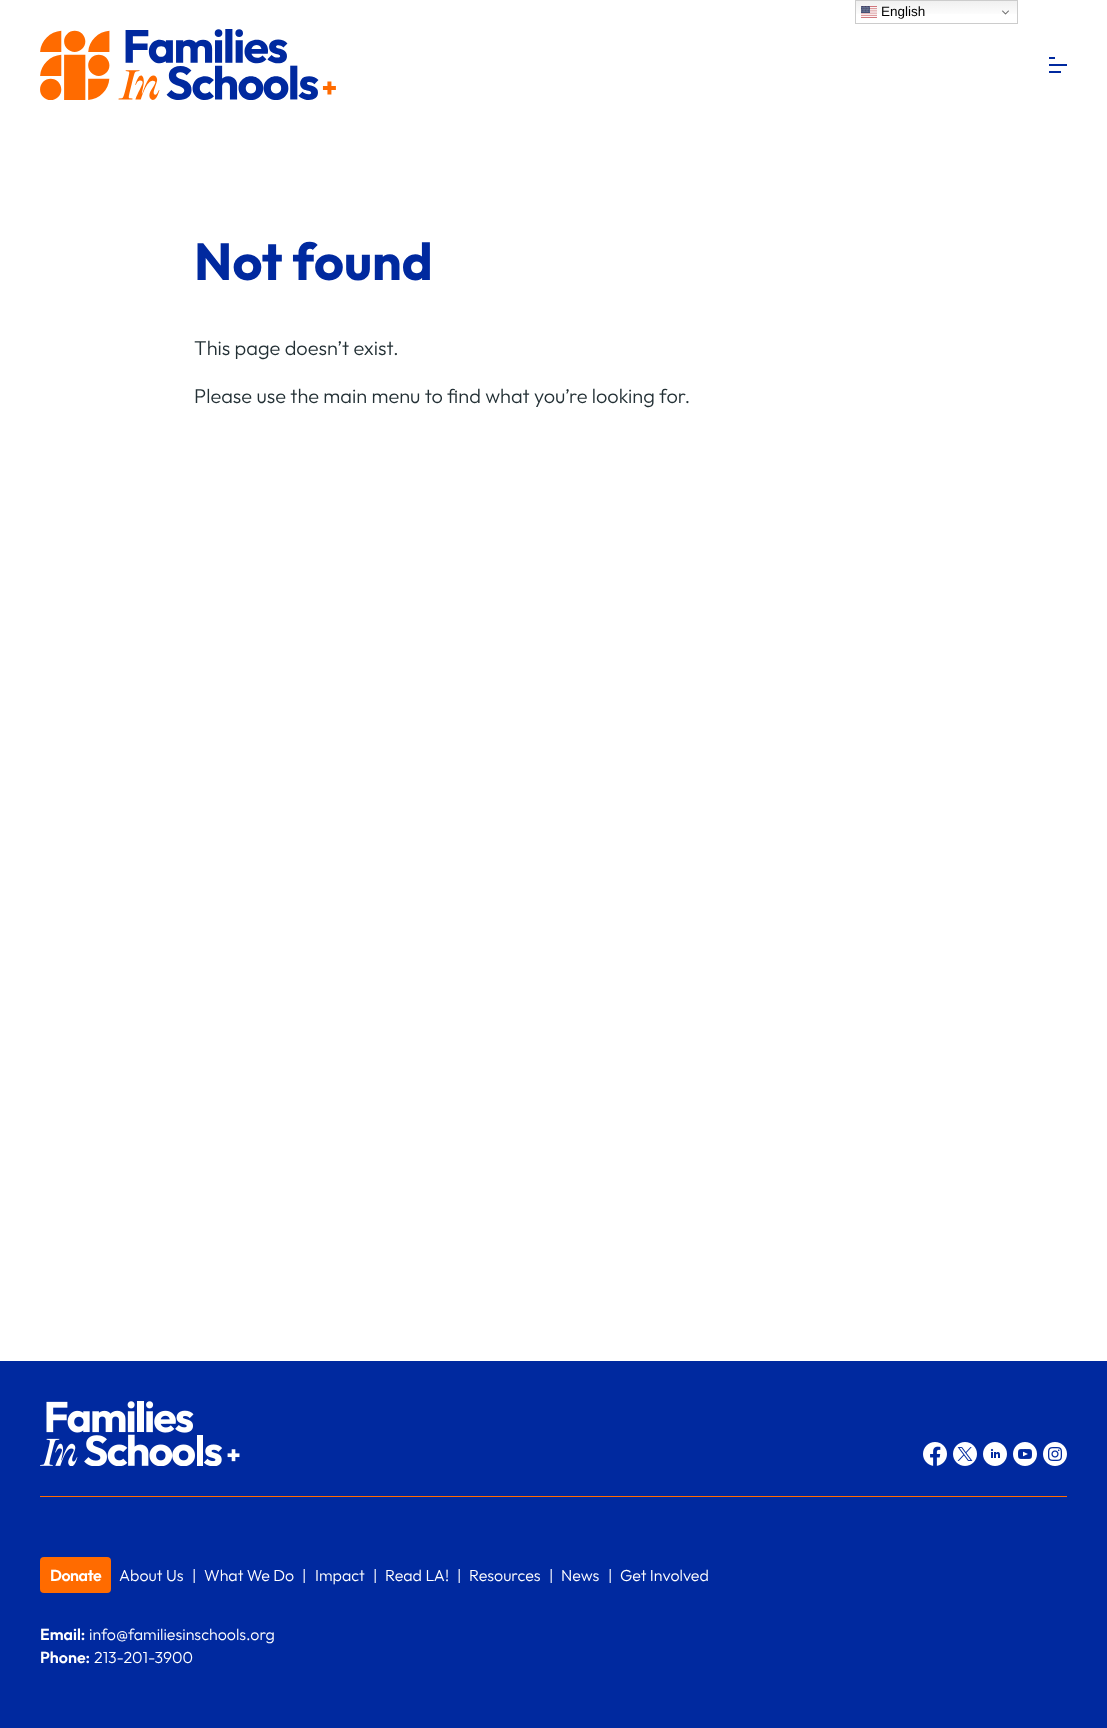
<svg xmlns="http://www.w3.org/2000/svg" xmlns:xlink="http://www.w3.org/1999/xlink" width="1107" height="1728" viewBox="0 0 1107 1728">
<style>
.cls-1{font:13.5px Liberation Sans;fill:#000000}
.cls-2{font:100 52px 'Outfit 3';fill:#00299f}
.cls-3{font:100 20px Outfit;fill:#233035}
.cls-4{font:100 16px 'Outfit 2';letter-spacing:-0.5px;fill:#ffffff}
.cls-5{font:100 16px Outfit;fill:#ffffff}
.cls-6{font:100 16px 'Outfit 2';fill:#ffffff}
</style>
<defs>
<linearGradient id="g1" gradientUnits="userSpaceOnUse" x1="937" y1="0" x2="937" y2="24"><stop offset="0" stop-color="#efefef"/><stop offset="0.7" stop-color="#ffffff"/></linearGradient>
</defs>
<rect width="100%" height="100%" fill="#ffffff"/>
<rect fill="url(#g1)" x="856" y="1" width="161" height="13"/>
<rect fill="none" stroke="#cccccc" x="855.5" y="0.5" width="162" height="23"/>
<image xlink:href="image0.png" x="861" y="6" width="16" height="12"/>
<image xlink:href="image1.png" x="1002" y="10" width="7" height="5"/>
<image xlink:href="image2.png" x="40" y="29" width="296" height="71"/>
<rect fill="#00299f" x="1049" y="57" width="6" height="2"/>
<rect fill="#00299f" x="1049" y="64" width="18" height="2"/>
<rect fill="#00299f" x="1049" y="71" width="12" height="2"/>
<rect fill="#00299f" x="0" y="1361" width="1107" height="367"/>
<rect fill="#ff6b00" x="40" y="1496" width="1027" height="1"/>
<image xlink:href="image3.png" x="40" y="1401" width="200" height="65"/>
<image xlink:href="image4.png" x="923" y="1442" width="24" height="24"/>
<image xlink:href="image5.png" x="953" y="1442" width="24" height="24"/>
<image xlink:href="image6.png" x="983" y="1442" width="24" height="24"/>
<image xlink:href="image7.png" x="1013" y="1442" width="24" height="24"/>
<image xlink:href="image8.png" x="1043" y="1442" width="24" height="24"/>
<rect fill="#ff6b00" x="40" y="1557" width="71" height="36" rx="4"/>
<text class="cls-1" x="881" y="16">English</text>
<text class="cls-2" x="194" y="280">Not found</text>
<text class="cls-3" x="194" y="355">This page doesn’t exist.</text>
<text class="cls-3" x="194" y="403">Please use the main menu to find what you’re looking for.</text>
<text class="cls-4" x="50" y="1581">Donate</text>
<text class="cls-5" x="119" y="1581">About Us</text>
<text class="cls-5" x="192" y="1581">|</text>
<text class="cls-5" x="204" y="1581">What We Do</text>
<text class="cls-5" x="302" y="1581">|</text>
<text class="cls-5" x="315" y="1581">Impact</text>
<text class="cls-5" x="373" y="1581">|</text>
<text class="cls-5" x="385" y="1581">Read LA!</text>
<text class="cls-5" x="457" y="1581">|</text>
<text class="cls-5" x="469" y="1581">Resources</text>
<text class="cls-5" x="549" y="1581">|</text>
<text class="cls-5" x="561" y="1581">News</text>
<text class="cls-5" x="608" y="1581">|</text>
<text class="cls-5" x="620" y="1581">Get Involved</text>
<text class="cls-6" x="40" y="1640">Email:</text>
<text class="cls-5" x="89" y="1640">info@familiesinschools.org</text>
<text class="cls-6" x="40" y="1663">Phone:</text>
<text class="cls-5" x="94" y="1663">213-201-3900</text>
</svg>
